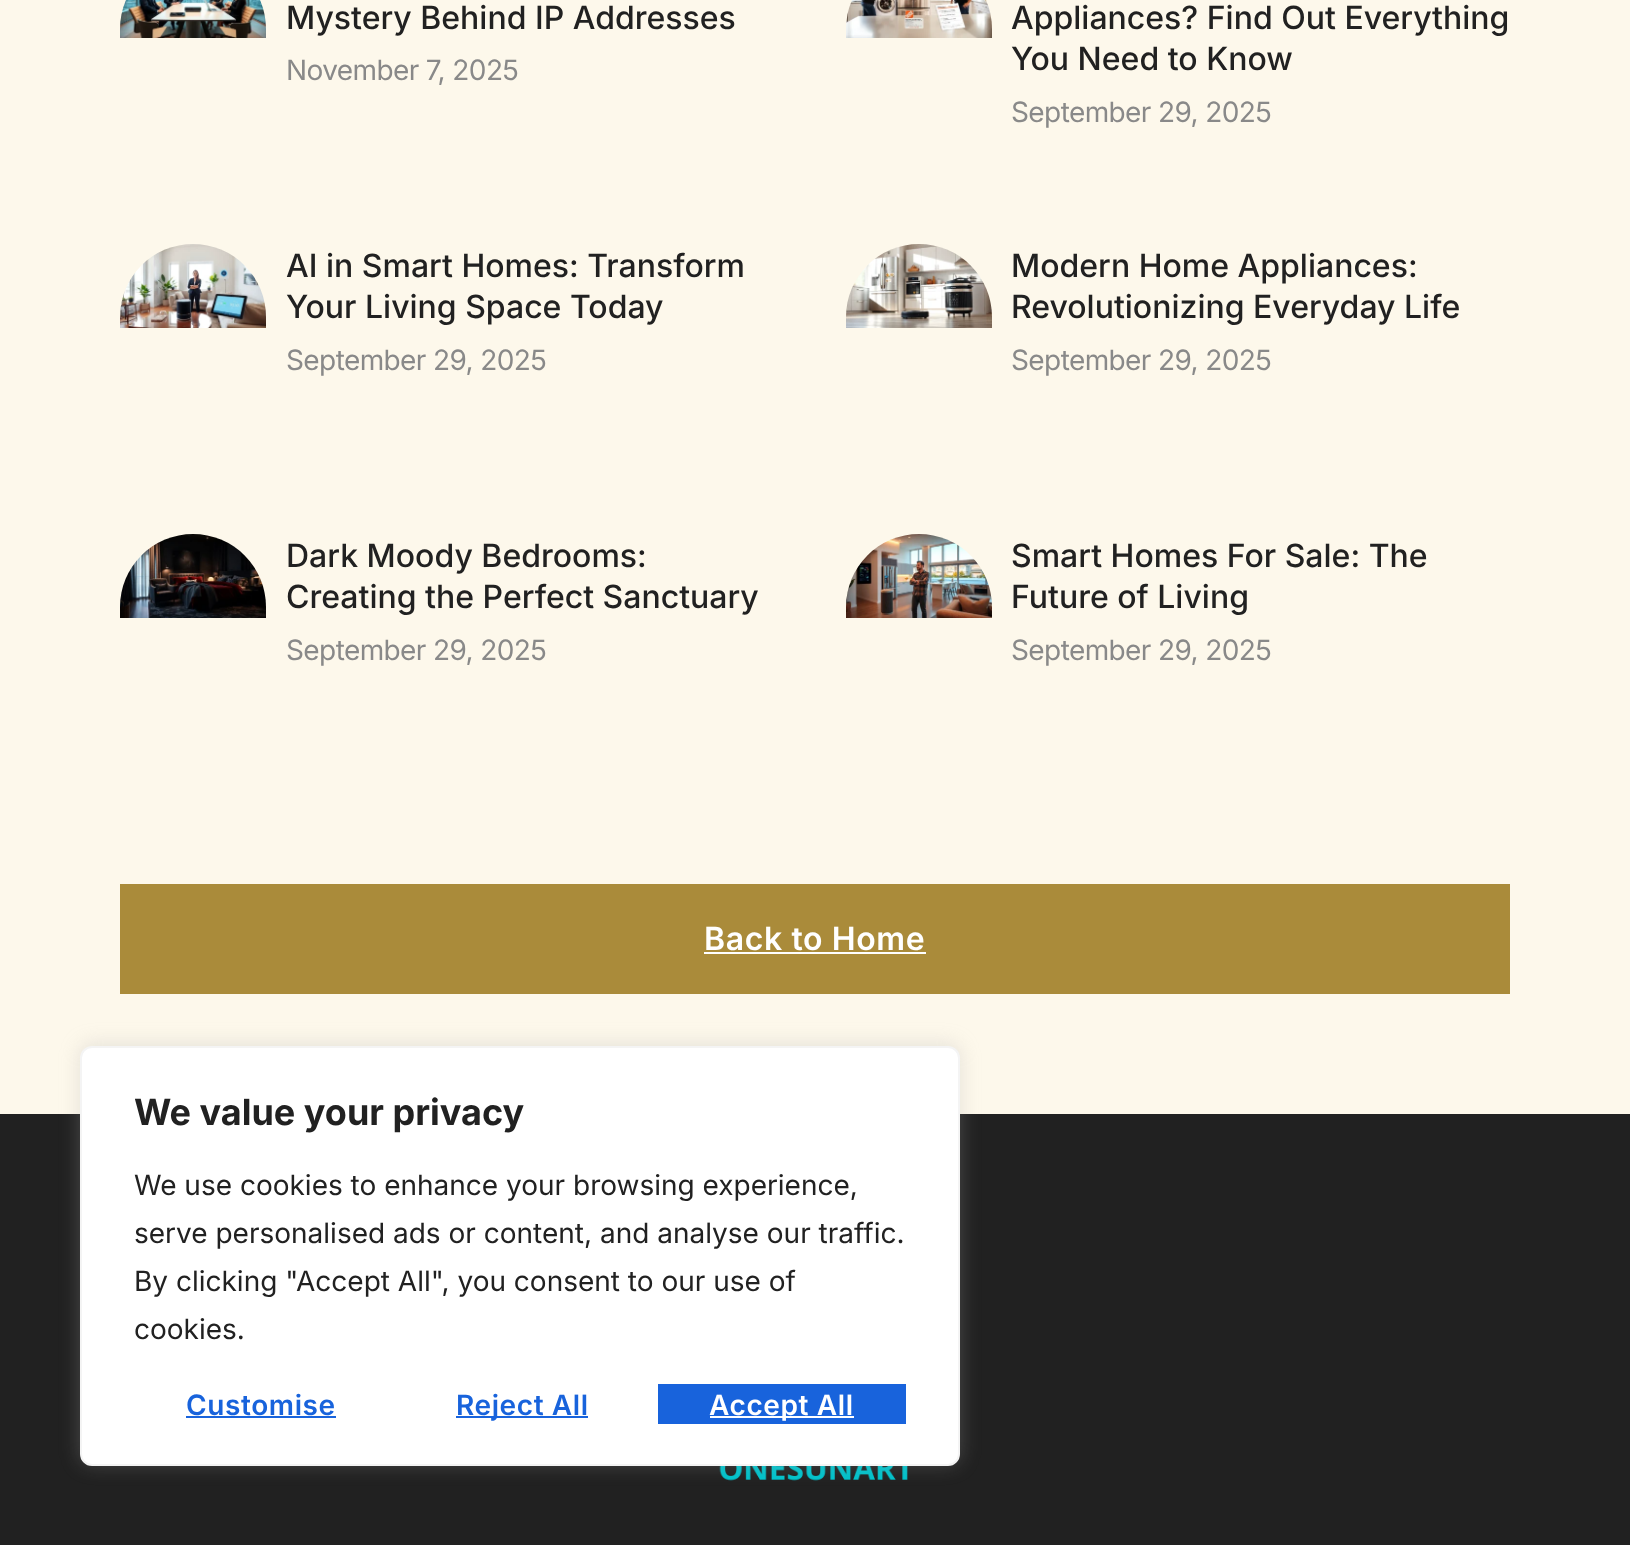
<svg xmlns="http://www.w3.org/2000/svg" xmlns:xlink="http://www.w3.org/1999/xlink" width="1630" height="1545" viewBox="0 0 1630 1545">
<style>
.cls-1{font:500 32px Inter;fill:#212121}
.cls-2{font:28px Inter;letter-spacing:-0.6px;fill:#898989}
.cls-3{font:600 32px Inter;letter-spacing:0.6px;fill:#ffffff}
.cls-4{font:bold 36px Inter;fill:#212121}
.cls-5{font:28px Inter;fill:#212121}
.cls-6{font:600 28px Inter;letter-spacing:0.6px;fill:#1863dc}
.cls-7{font:600 28px Inter;letter-spacing:0.6px;fill:#ffffff}
</style>
<rect width="100%" height="100%" fill="#fdf8eb"/>
<image xlink:href="image0.png" x="120" y="0" width="146" height="38"/>
<image xlink:href="image1.png" x="846" y="0" width="146" height="38"/>
<image xlink:href="image2.png" x="120" y="244" width="146" height="84"/>
<image xlink:href="image3.png" x="846" y="244" width="146" height="84"/>
<image xlink:href="image4.png" x="120" y="534" width="146" height="84"/>
<image xlink:href="image5.png" x="846" y="534" width="146" height="84"/>
<rect fill="#aa8b3a" x="120" y="884" width="1390" height="110"/>
<rect fill="#ffffff" x="704" y="952" width="222" height="2"/>
<rect fill="#212121" x="0" y="1114" width="1630" height="431"/>
<image xlink:href="image6.png" x="719" y="1466" width="189" height="15"/>
<rect fill="#acabab" fill-opacity="0.3" filter="blur(10px)" x="80" y="1044" width="880" height="420" rx="12"/>
<rect fill="#ffffff" stroke="#f4f4f4" stroke-width="2" x="81" y="1047" width="878" height="418" rx="11"/>
<rect fill="#1863dc" x="186" y="1416" width="150" height="2"/>
<rect fill="#1863dc" x="456" y="1416" width="132" height="2"/>
<rect fill="#1863dc" x="658" y="1384" width="248" height="40"/>
<rect fill="#ffffff" x="710" y="1416" width="144" height="2"/>
<text class="cls-1" x="286" y="29">Mystery Behind IP Addresses</text>
<text class="cls-2" x="286" y="80">November 7, 2025</text>
<text class="cls-1"><tspan x="1011" y="29">Appliances? Find Out Everything</tspan><tspan x="1011" y="70">You Need to Know</tspan></text>
<text class="cls-2" x="1011" y="122">September 29, 2025</text>
<text class="cls-1"><tspan x="286" y="277">AI in Smart Homes: Transform</tspan><tspan x="286" y="318">Your Living Space Today</tspan></text>
<text class="cls-2" x="286" y="370">September 29, 2025</text>
<text class="cls-1"><tspan x="1011" y="277">Modern Home Appliances:</tspan><tspan x="1011" y="318">Revolutionizing Everyday Life</tspan></text>
<text class="cls-2" x="1011" y="370">September 29, 2025</text>
<text class="cls-1"><tspan x="286" y="567">Dark Moody Bedrooms:</tspan><tspan x="286" y="608">Creating the Perfect Sanctuary</tspan></text>
<text class="cls-2" x="286" y="660">September 29, 2025</text>
<text class="cls-1"><tspan x="1011" y="567">Smart Homes For Sale: The</tspan><tspan x="1011" y="608">Future of Living</tspan></text>
<text class="cls-2" x="1011" y="660">September 29, 2025</text>
<text class="cls-3" x="704" y="950">Back to Home</text>
<text class="cls-4" x="134" y="1125">We value your privacy</text>
<text class="cls-5"><tspan x="134" y="1195">We use cookies to enhance your browsing experience,</tspan><tspan x="134" y="1243">serve personalised ads or content, and analyse our traffic.</tspan><tspan x="134" y="1291">By clicking "Accept All", you consent to our use of</tspan><tspan x="134" y="1339">cookies.</tspan></text>
<text class="cls-6" x="186" y="1415">Customise</text>
<text class="cls-6" x="456" y="1415">Reject All</text>
<text class="cls-7" x="709" y="1415">Accept All</text>
</svg>
